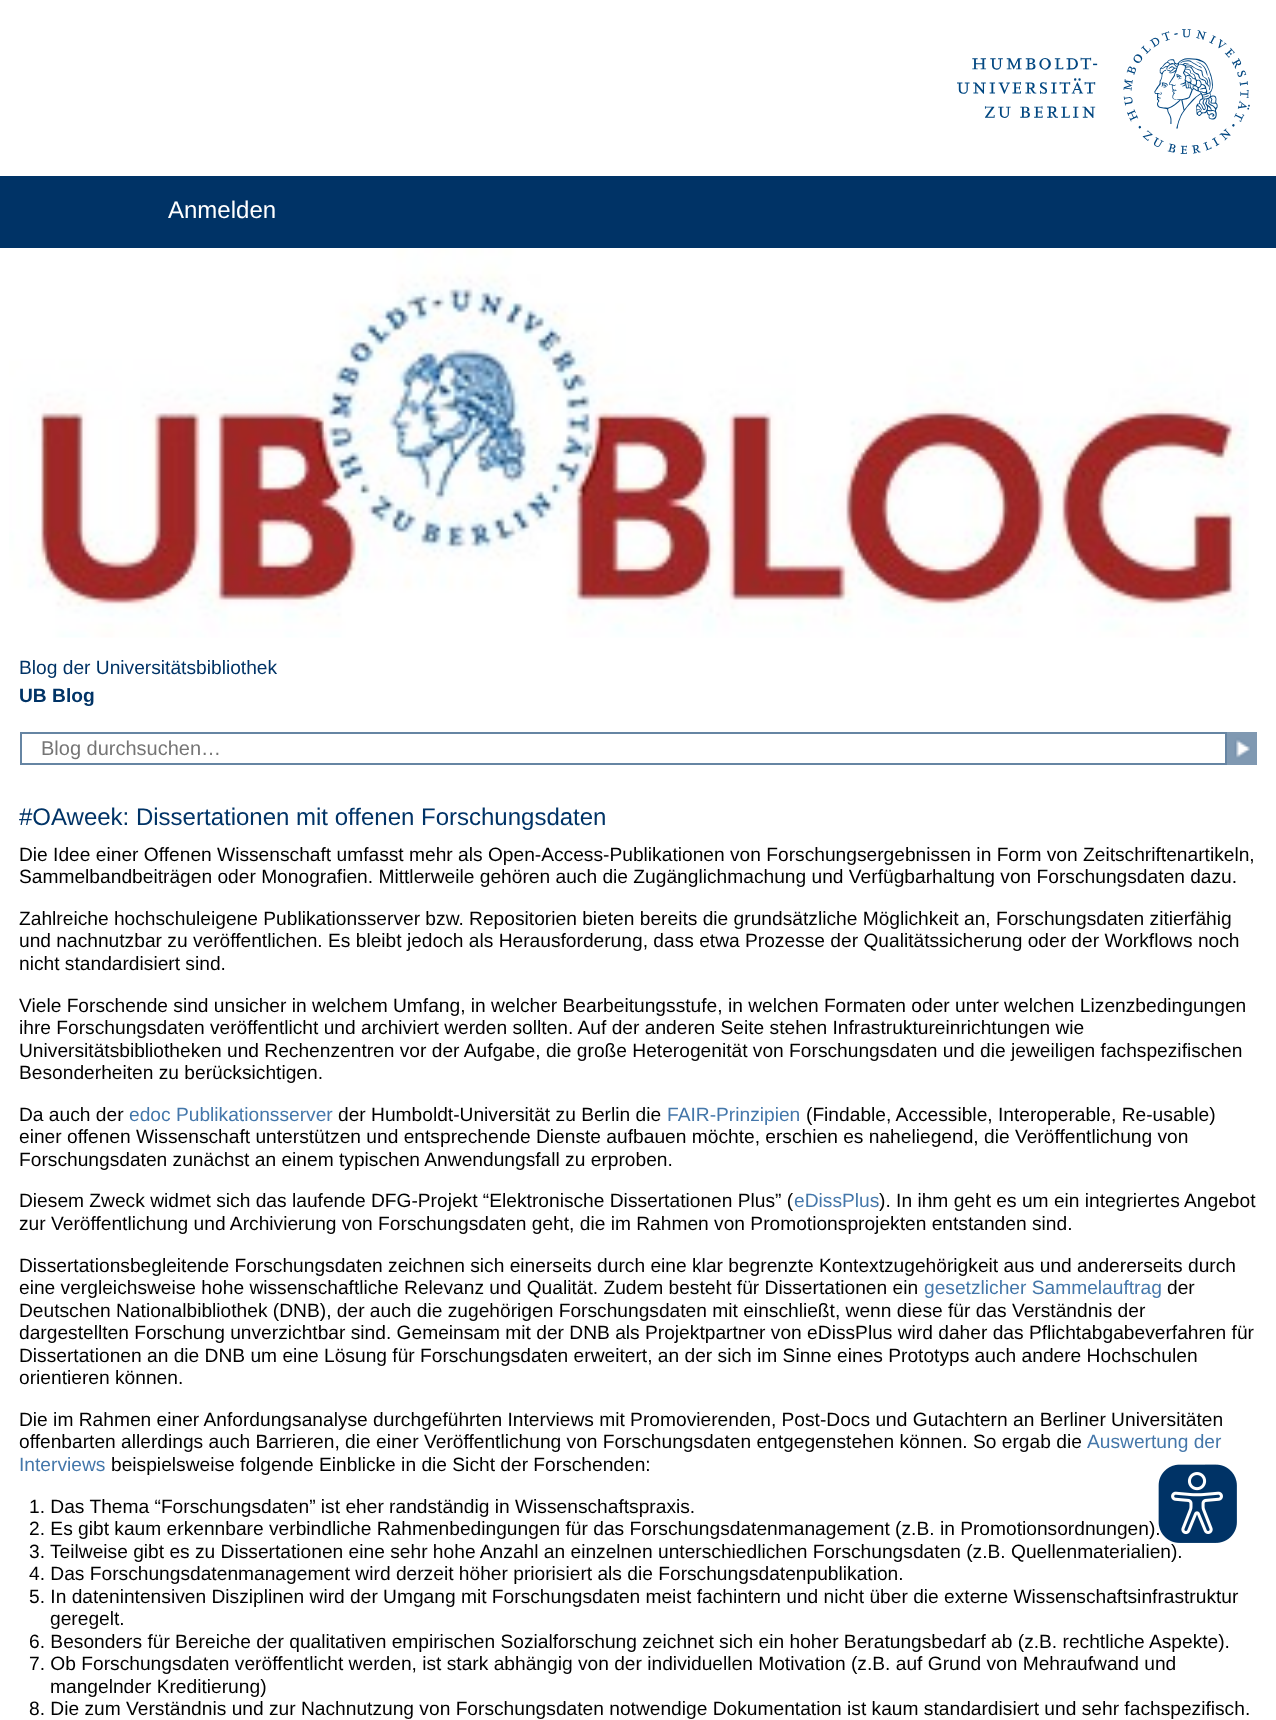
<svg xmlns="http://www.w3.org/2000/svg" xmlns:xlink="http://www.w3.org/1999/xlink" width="1276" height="1720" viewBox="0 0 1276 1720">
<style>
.cls-1{font:24px Liberation Sans;fill:#ffffff}
.cls-2{font:19.2px Liberation Sans;fill:#003366}
.cls-3{font:bold 19.2px Liberation Sans;fill:#003366}
.cls-4{font:20px Liberation Sans;fill:#757575}
.cls-5{font:24px Liberation Sans;fill:#003366}
.cls-6{font:19.2px Liberation Sans;fill:#000000}
.cls-7{font:19.2px Liberation Sans;fill:#4477aa}
</style>
<rect width="100%" height="100%" fill="#ffffff"/>
<image xlink:href="image0.png" x="957" y="29" width="293" height="125"/>
<rect fill="#003366" x="0" y="176" width="1276" height="72"/>
<image xlink:href="image1.png" x="9" y="248" width="1240" height="390"/>
<rect fill="none" stroke="#6685a3" stroke-width="2" x="21" y="733" width="1205" height="31"/>
<image xlink:href="image2.png" x="1227" y="732" width="30" height="33"/>
<text class="cls-1" x="168" y="218">Anmelden</text>
<text class="cls-2" x="19" y="674">Blog der Universitätsbibliothek</text>
<text class="cls-3" x="19" y="702">UB Blog</text>
<text class="cls-4" x="41" y="755">Blog durchsuchen…</text>
<text class="cls-5" x="19" y="825">#OAweek: Dissertationen mit offenen Forschungsdaten</text>
<text class="cls-6"><tspan x="19" y="861">Die Idee einer Offenen Wissenschaft umfasst mehr als Open-Access-Publikationen von Forschungsergebnissen in Form von Zeitschriftenartikeln,</tspan><tspan x="19" y="883">Sammelbandbeiträgen oder Monografien. Mittlerweile gehören auch die Zugänglichmachung und Verfügbarhaltung von Forschungsdaten dazu.</tspan></text>
<text class="cls-6"><tspan x="19" y="925">Zahlreiche hochschuleigene Publikationsserver bzw. Repositorien bieten bereits die grundsätzliche Möglichkeit an, Forschungsdaten zitierfähig</tspan><tspan x="19" y="947">und nachnutzbar zu veröffentlichen. Es bleibt jedoch als Herausforderung, dass etwa Prozesse der Qualitätssicherung oder der Workflows noch</tspan><tspan x="19" y="970">nicht standardisiert sind.</tspan></text>
<text class="cls-6"><tspan x="19" y="1012">Viele Forschende sind unsicher in welchem Umfang, in welcher Bearbeitungsstufe, in welchen Formaten oder unter welchen Lizenzbedingungen</tspan><tspan x="19" y="1034">ihre Forschungsdaten veröffentlicht und archiviert werden sollten. Auf der anderen Seite stehen Infrastruktureinrichtungen wie</tspan><tspan x="19" y="1057">Universitätsbibliotheken und Rechenzentren vor der Aufgabe, die große Heterogenität von Forschungsdaten und die jeweiligen fachspezifischen</tspan><tspan x="19" y="1079">Besonderheiten zu berücksichtigen.</tspan></text>
<text class="cls-6" x="19" y="1121">Da auch der</text>
<text class="cls-7" x="129" y="1121">edoc Publikationsserver</text>
<text class="cls-6" x="338" y="1121">der Humboldt-Universität zu Berlin die</text>
<text class="cls-7" x="667" y="1121">FAIR-Prinzipien</text>
<text class="cls-6" x="806" y="1121">(Findable, Accessible, Interoperable, Re-usable)</text>
<text class="cls-6"><tspan x="19" y="1143">einer offenen Wissenschaft unterstützen und entsprechende Dienste aufbauen möchte, erschien es naheliegend, die Veröffentlichung von</tspan><tspan x="19" y="1166">Forschungsdaten zunächst an einem typischen Anwendungsfall zu erproben.</tspan></text>
<text class="cls-6" x="19" y="1207">Diesem Zweck widmet sich das laufende DFG-Projekt “Elektronische Dissertationen Plus” (</text>
<text class="cls-7" x="794" y="1207">eDissPlus</text>
<text class="cls-6" x="879" y="1207">). In ihm geht es um ein integriertes Angebot</text>
<text class="cls-6" x="19" y="1230">zur Veröffentlichung und Archivierung von Forschungsdaten geht, die im Rahmen von Promotionsprojekten entstanden sind.</text>
<text class="cls-6"><tspan x="19" y="1272">Dissertationsbegleitende Forschungsdaten zeichnen sich einerseits durch eine klar begrenzte Kontextzugehörigkeit aus und andererseits durch</tspan><tspan x="19" y="1294">eine vergleichsweise hohe wissenschaftliche Relevanz und Qualität. Zudem besteht für Dissertationen ein</tspan></text>
<text class="cls-7" x="924" y="1294">gesetzlicher Sammelauftrag</text>
<text class="cls-6" x="1167" y="1294">der</text>
<text class="cls-6"><tspan x="19" y="1317">Deutschen Nationalbibliothek (DNB), der auch die zugehörigen Forschungsdaten mit einschließt, wenn diese für das Verständnis der</tspan><tspan x="19" y="1339">dargestellten Forschung unverzichtbar sind. Gemeinsam mit der DNB als Projektpartner von eDissPlus wird daher das Pflichtabgabeverfahren für</tspan><tspan x="19" y="1362">Dissertationen an die DNB um eine Lösung für Forschungsdaten erweitert, an der sich im Sinne eines Prototyps auch andere Hochschulen</tspan><tspan x="19" y="1384">orientieren können.</tspan></text>
<text class="cls-6"><tspan x="19" y="1426">Die im Rahmen einer Anfordungsanalyse durchgeführten Interviews mit Promovierenden, Post-Docs und Gutachtern an Berliner Universitäten</tspan><tspan x="19" y="1448">offenbarten allerdings auch Barrieren, die einer Veröffentlichung von Forschungsdaten entgegenstehen können. So ergab die</tspan></text>
<text class="cls-7" x="1087" y="1448">Auswertung der</text>
<text class="cls-7" x="19" y="1471">Interviews</text>
<text class="cls-6" x="111" y="1471">beispielsweise folgende Einblicke in die Sicht der Forschenden:</text>
<text class="cls-6"><tspan x="29" y="1513">1. Das Thema “Forschungsdaten” ist eher randständig in Wissenschaftspraxis.</tspan><tspan x="29" y="1535">2. Es gibt kaum erkennbare verbindliche Rahmenbedingungen für das Forschungsdatenmanagement (z.B. in Promotionsordnungen).</tspan><tspan x="29" y="1558">3. Teilweise gibt es zu Dissertationen eine sehr hohe Anzahl an einzelnen unterschiedlichen Forschungsdaten (z.B. Quellenmaterialien).</tspan><tspan x="29" y="1580">4. Das Forschungsdatenmanagement wird derzeit höher priorisiert als die Forschungsdatenpublikation.</tspan><tspan x="29" y="1603">5. In datenintensiven Disziplinen wird der Umgang mit Forschungsdaten meist fachintern und nicht über die externe Wissenschaftsinfrastruktur</tspan></text>
<text class="cls-6" x="50" y="1625">geregelt.</text>
<text class="cls-6"><tspan x="29" y="1648">6. Besonders für Bereiche der qualitativen empirischen Sozialforschung zeichnet sich ein hoher Beratungsbedarf ab (z.B. rechtliche Aspekte).</tspan><tspan x="29" y="1670">7. Ob Forschungsdaten veröffentlicht werden, ist stark abhängig von der individuellen Motivation (z.B. auf Grund von Mehraufwand und</tspan></text>
<text class="cls-6" x="50" y="1693">mangelnder Kreditierung)</text>
<text class="cls-6" x="29" y="1715">8. Die zum Verständnis und zur Nachnutzung von Forschungsdaten notwendige Dokumentation ist kaum standardisiert und sehr fachspezifisch.</text>
<image xlink:href="image3.png" x="1158" y="1464" width="79" height="81"/>
</svg>
